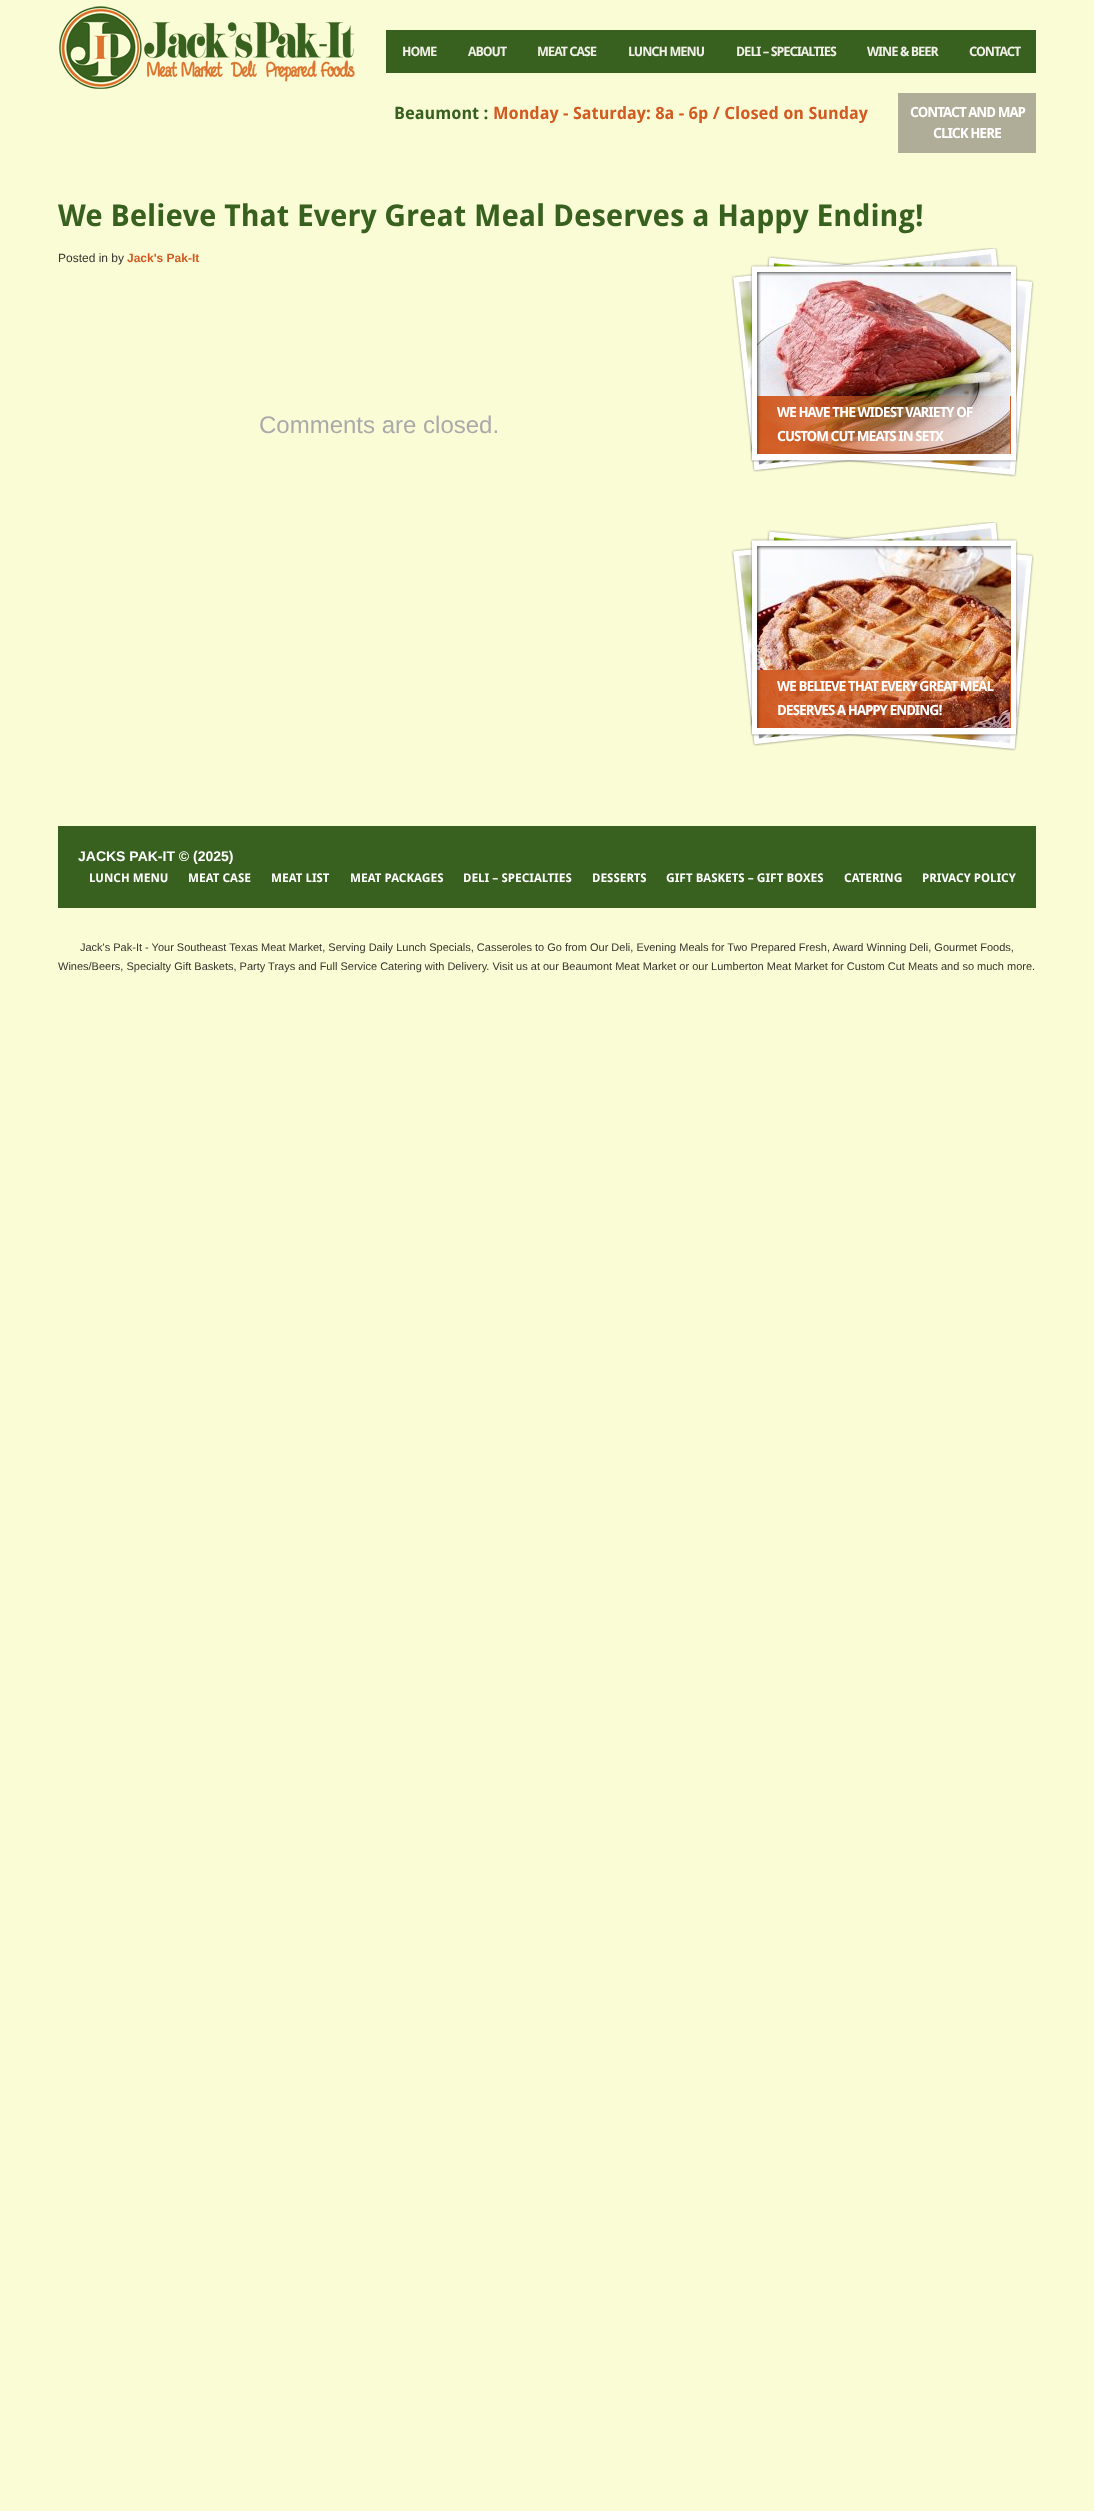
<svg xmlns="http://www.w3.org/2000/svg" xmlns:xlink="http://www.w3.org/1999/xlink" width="1094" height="2511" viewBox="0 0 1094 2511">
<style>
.cls-1{font:bold 13px Droid Sans;letter-spacing:-1px;fill:#f1f0e8}
.cls-2{font:bold 17px Droid Sans;fill:#38601f}
.cls-3{font:bold 17px Droid Sans;fill:#d15b23}
.cls-4{font:bold 14px Droid Sans;letter-spacing:-1px;fill:#ffffff}
.cls-5{font:bold 30px Droid Sans;fill:#38601f}
.cls-6{font:12px Liberation Sans;fill:#37332c}
.cls-7{font:bold 12px Liberation Sans;fill:#d15b23}
.cls-8{font:24px Liberation Sans;fill:#aaaaaa}
.cls-9{font:bold 14px Liberation Sans;fill:#ffffff}
.cls-10{font:bold 12px Droid Sans;fill:#ffffff}
.cls-11{font:11px Liberation Sans;fill:#37332c}
</style>
<rect width="100%" height="100%" fill="#fafcd6"/>
<image xlink:href="image0.png" x="59" y="6" width="296" height="83"/>
<rect fill="#38601f" x="386" y="30" width="650" height="43"/>
<rect fill="#afac97" x="898" y="93" width="138" height="60"/>
<image xlink:href="image1.png" x="731" y="248" width="303" height="229"/>
<image xlink:href="image2.png" x="757" y="272" width="254" height="182"/>
<image xlink:href="image3.png" x="757" y="272" width="254" height="172"/>
<image xlink:href="image5.png" x="757" y="396" width="254" height="58"/>
<image xlink:href="image1.png" x="731" y="522" width="303" height="229"/>
<image xlink:href="image6.png" x="757" y="546" width="254" height="182"/>
<image xlink:href="image7.png" x="757" y="546" width="254" height="172"/>
<image xlink:href="image9.png" x="757" y="670" width="254" height="58"/>
<rect fill="#38601f" x="58" y="826" width="978" height="82"/>
<text class="cls-1" x="402" y="56">HOME</text>
<text class="cls-1" x="468" y="56">ABOUT</text>
<text class="cls-1" x="537" y="56">MEAT CASE</text>
<text class="cls-1" x="628" y="56">LUNCH MENU</text>
<text class="cls-1" x="736" y="56">DELI – SPECIALTIES</text>
<text class="cls-1" x="867" y="56">WINE &amp; BEER</text>
<text class="cls-1" x="969" y="56">CONTACT</text>
<text class="cls-2" x="394" y="119">Beaumont :</text>
<text class="cls-3" x="493" y="119">Monday - Saturday: 8a - 6p / Closed on Sunday</text>
<text class="cls-4" x="910" y="117">CONTACT AND MAP</text>
<text class="cls-4" x="933" y="138">CLICK HERE</text>
<text class="cls-5" x="58" y="226">We Believe That Every Great Meal Deserves a Happy Ending!</text>
<text class="cls-6" x="58" y="262">Posted in by</text>
<text class="cls-7" x="127" y="262">Jack's Pak-It</text>
<text class="cls-8" x="259" y="433">Comments are closed.</text>
<text class="cls-4"><tspan x="777" y="417">WE HAVE THE WIDEST VARIETY OF</tspan><tspan x="777" y="441">CUSTOM CUT MEATS IN SETX</tspan></text>
<image xlink:href="image4.png" x="757" y="272" width="254" height="182"/>
<text class="cls-4"><tspan x="777" y="691">WE BELIEVE THAT EVERY GREAT MEAL</tspan><tspan x="777" y="715">DESERVES A HAPPY ENDING!</tspan></text>
<image xlink:href="image8.png" x="757" y="546" width="254" height="182"/>
<text class="cls-9" x="78" y="861">JACKS PAK-IT © (2025)</text>
<text class="cls-10" x="89" y="882">LUNCH MENU</text>
<text class="cls-10" x="188" y="882">MEAT CASE</text>
<text class="cls-10" x="271" y="882">MEAT LIST</text>
<text class="cls-10" x="350" y="882">MEAT PACKAGES</text>
<text class="cls-10" x="463" y="882">DELI – SPECIALTIES</text>
<text class="cls-10" x="592" y="882">DESSERTS</text>
<text class="cls-10" x="666" y="882">GIFT BASKETS – GIFT BOXES</text>
<text class="cls-10" x="844" y="882">CATERING</text>
<text class="cls-10" x="922" y="882">PRIVACY POLICY</text>
<text class="cls-11" x="80" y="951">Jack's Pak-It - Your Southeast Texas Meat Market, Serving Daily Lunch Specials, Casseroles to Go from Our Deli, Evening Meals for Two Prepared Fresh, Award Winning Deli, Gourmet Foods,</text>
<text class="cls-11" x="58" y="970">Wines/Beers, Specialty Gift Baskets, Party Trays and Full Service Catering with Delivery. Visit us at our Beaumont Meat Market or our Lumberton Meat Market for Custom Cut Meats and so much more.</text>
</svg>
